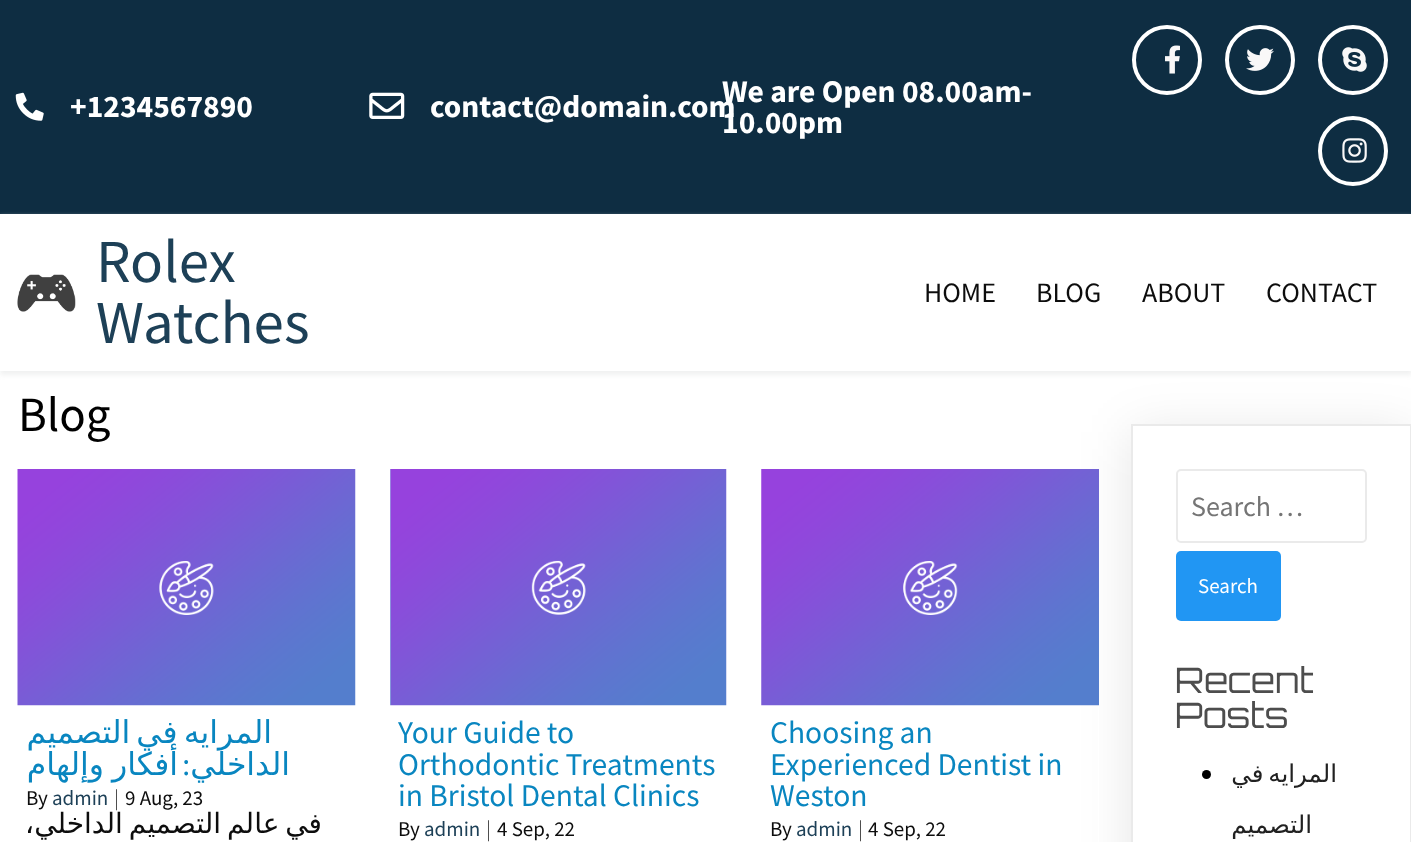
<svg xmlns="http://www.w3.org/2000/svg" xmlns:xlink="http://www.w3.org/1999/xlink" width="1411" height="842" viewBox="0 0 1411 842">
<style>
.cls-1{font:bold 31.5px Source Sans Pro;fill:#ffffff}
.cls-2{font:61px Source Sans Pro;fill:#1d4057}
.cls-3{font:28px Source Sans Pro;fill:#0d0d0d}
.cls-4{font:49px Source Sans Pro;fill:#000000}
.cls-5{font:31.5px DejaVu Sans;direction:rtl;fill:#0986c0}
.cls-6{font:31.5px Source Sans Pro;direction:rtl;fill:#0986c0}
.cls-7{font:21px Source Sans Pro;fill:#0d0d0d}
.cls-8{font:21px Source Sans Pro;fill:#1d4057}
.cls-9{font:300 21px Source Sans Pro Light;fill:#0d0d0d}
.cls-10{font:28px DejaVu Sans;direction:rtl;fill:#0d0d0d}
.cls-11{font:31.5px Source Sans Pro;fill:#0986c0}
.cls-12{font:28px Source Sans Pro;fill:#757575}
.cls-13{font:21px Source Sans Pro;fill:#ffffff}
.cls-14{font:35px Orbitron;fill:#4d4d4d}
.cls-15{font:24.5px DejaVu Sans;direction:rtl;fill:#212121}
</style>
<defs>
<clipPath id="clip1"><path d="M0 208H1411V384H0ZM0 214H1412V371H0Z" clip-rule="evenodd"/></clipPath>
<clipPath id="clip2"><path d="M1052 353H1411V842H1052ZM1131 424H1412V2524H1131Z" clip-rule="evenodd"/></clipPath>
</defs>
<rect width="100%" height="100%" fill="#ffffff"/>
<rect fill="#0e2d42" x="0" y="0" width="1411" height="214"/>
<image xlink:href="image0.png" x="15" y="92" width="29" height="29"/>
<image xlink:href="image1.png" x="369" y="92" width="36" height="27"/>
<circle fill="none" stroke="#ffffff" stroke-width="4" cx="1167" cy="60" r="33"/>
<image xlink:href="image2.png" x="1165" y="45" width="15" height="29"/>
<circle fill="none" stroke="#ffffff" stroke-width="4" cx="1260" cy="60" r="33"/>
<image xlink:href="image3.png" x="1246" y="48" width="28" height="23"/>
<circle fill="none" stroke="#ffffff" stroke-width="4" cx="1353" cy="60" r="33"/>
<image xlink:href="image4.png" x="1342" y="47" width="25" height="25"/>
<circle fill="none" stroke="#ffffff" stroke-width="4" cx="1353" cy="151" r="33"/>
<image xlink:href="image5.png" x="1342" y="138" width="25" height="25"/>
<g clip-path="url(#clip1)">
<rect fill="#f0f1f1" filter="blur(2.5px)" x="0" y="217" width="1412" height="158"/>
</g>
<image xlink:href="image6.png" x="17" y="274" width="59" height="38"/>
<image xlink:href="image7.png" x="17" y="469" width="339" height="237"/>
<image xlink:href="image8.png" x="390" y="469" width="337" height="237"/>
<g clip-path="url(#clip2)">
<rect fill="#000000" fill-opacity="0.1" filter="blur(26px)" x="1131" y="432" width="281" height="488"/>
</g>
<rect fill="#ffffff" x="1098" y="474" width="1" height="368"/>
<image xlink:href="image9.png" x="761" y="469" width="338" height="237"/>
<rect fill="none" stroke="#eaeaea" stroke-width="2" x="1132" y="425" width="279" height="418"/>
<rect fill="none" stroke="#eaeaea" stroke-width="2" x="1177" y="470" width="189" height="72" rx="4"/>
<rect fill="#2196f3" x="1176" y="551" width="105" height="70" rx="5"/>
<circle fill="#000000" cx="1206.5" cy="774.5" r="4.5"/>
<text class="cls-1" x="70" y="117">+1234567890</text>
<text class="cls-1" x="430" y="117">contact@domain.com</text>
<text class="cls-1"><tspan x="722" y="102">We are Open 08.00am-</tspan><tspan x="722" y="133">10.00pm</tspan></text>
<text class="cls-2"><tspan x="96" y="282">Rolex</tspan><tspan x="96" y="343">Watches</tspan></text>
<text class="cls-3" x="924" y="302">HOME</text>
<text class="cls-3" x="1036" y="302">BLOG</text>
<text class="cls-3" x="1142" y="302">ABOUT</text>
<text class="cls-3" x="1266" y="302">CONTACT</text>
<text class="cls-4" x="18" y="431">Blog</text>
<text class="cls-5" x="272" y="743" word-spacing="-4">المرايه في التصميم</text>
<text class="cls-5" x="178" y="775" word-spacing="-2">أفكار وإلهام</text>
<text class="cls-6" x="190" y="775">:</text>
<text class="cls-5" x="290" y="775">الداخلي</text>
<text class="cls-7" x="26" y="805">By</text>
<text class="cls-8" x="52" y="805">admin</text>
<text class="cls-9" x="114" y="805">|</text>
<text class="cls-7" x="125" y="805">9 Aug, 23</text>
<text class="cls-10" x="322" y="833" word-spacing="-3">في عالم التصميم الداخلي،</text>
<text class="cls-11"><tspan x="398" y="743">Your Guide to</tspan><tspan x="398" y="775">Orthodontic Treatments</tspan><tspan x="398" y="806">in Bristol Dental Clinics</tspan></text>
<text class="cls-7" x="398" y="836">By</text>
<text class="cls-8" x="424" y="836">admin</text>
<text class="cls-9" x="486" y="836">|</text>
<text class="cls-7" x="497" y="836">4 Sep, 22</text>
<text class="cls-11"><tspan x="770" y="743">Choosing an</tspan><tspan x="770" y="775">Experienced Dentist in</tspan><tspan x="770" y="806">Weston</tspan></text>
<text class="cls-7" x="770" y="836">By</text>
<text class="cls-8" x="796" y="836">admin</text>
<text class="cls-9" x="858" y="836">|</text>
<text class="cls-7" x="868" y="836">4 Sep, 22</text>
<text class="cls-12" x="1191" y="516">Search …</text>
<text class="cls-13" x="1198" y="593">Search</text>
<text class="cls-14"><tspan x="1175" y="693">Recent</tspan><tspan x="1175" y="728">Posts</tspan></text>
<text class="cls-15" x="1337" y="782" word-spacing="-3">المرايه في</text>
<text class="cls-15" x="1312" y="833">التصميم</text>
</svg>
